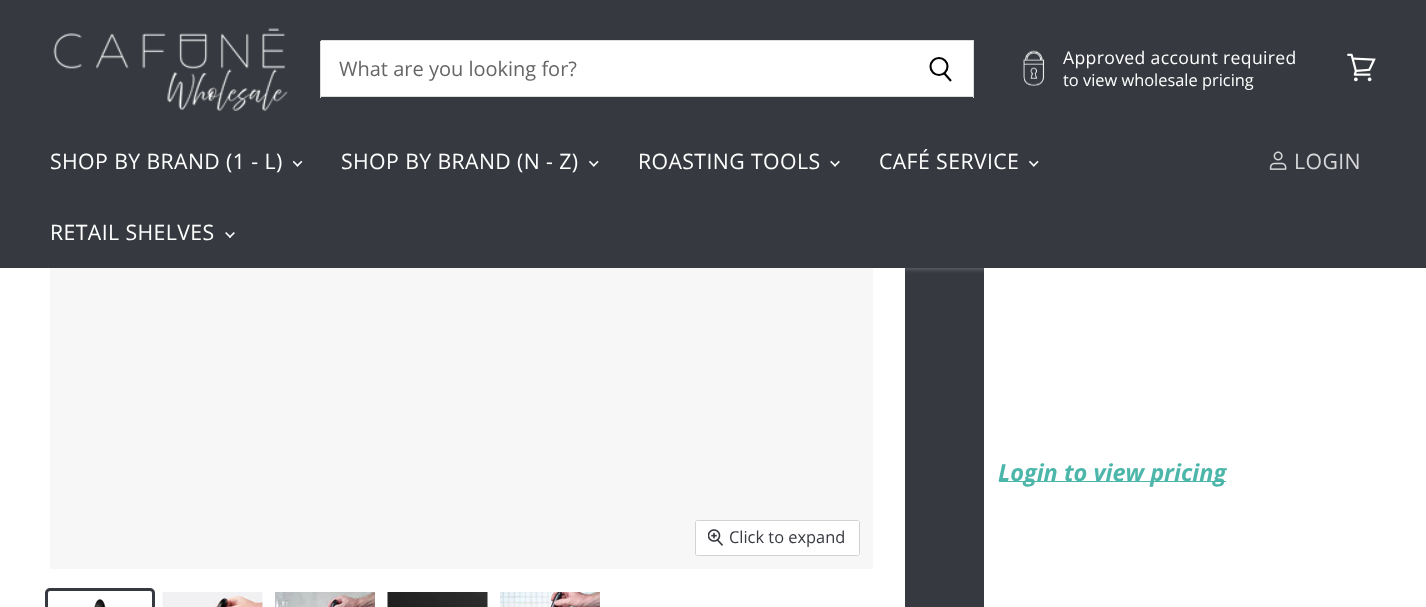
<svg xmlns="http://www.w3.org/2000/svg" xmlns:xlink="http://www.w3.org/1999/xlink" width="1426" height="607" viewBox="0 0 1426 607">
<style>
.cls-1{font:20px Open Sans;fill:#666666}
.cls-2{font:17.6px Open Sans;letter-spacing:0.35px;fill:#ffffff}
.cls-3{font:16.4px Open Sans;fill:#ffffff}
.cls-4{font:21.25px Open Sans;letter-spacing:0.4px;fill:#ffffff}
.cls-5{font:21.25px Open Sans;letter-spacing:0.4px;fill:#d7d7d9}
.cls-6{font:italic bold 23.5px Open Sans;fill:#4bb6a9}
.cls-7{font:16.4px Open Sans;fill:#36393f}
</style>
<rect width="100%" height="100%" fill="#ffffff"/>
<rect fill="#36393f" x="905" y="268" width="79" height="339"/>
<rect fill="#f7f7f7" x="50" y="268" width="823" height="301"/>
<rect fill="#ffffff" fill-opacity="0.25" filter="blur(2.5px)" x="0" y="1" width="1426" height="268"/>
<rect fill="#36393f" x="0" y="0" width="1426" height="268"/>
<image xlink:href="image0.png" x="53" y="28" width="235" height="83"/>
<rect fill="#ffffff" x="321" y="41" width="652" height="55"/>
<rect fill="#dedede" x="321" y="40" width="653" height="1"/>
<rect fill="#dedede" x="973" y="41" width="1" height="57"/>
<rect fill="#dedede" x="321" y="96" width="653" height="1"/>
<path fill="none" stroke="#000000" stroke-width="2.1" d="M951 81L944 73"/>
<circle fill="none" stroke="#000000" stroke-width="2.1" cx="939" cy="66.5" r="8.5"/>
<rect fill="#dedede" x="320" y="41" width="1" height="57"/>
<image xlink:href="image1.png" x="1023" y="50" width="22" height="36"/>
<image xlink:href="image2.png" x="1347" y="53" width="29" height="29"/>
<image xlink:href="image3.png" x="293" y="160" width="10" height="7"/>
<image xlink:href="image4.png" x="589" y="160" width="10" height="7"/>
<image xlink:href="image5.png" x="830" y="160" width="10" height="7"/>
<image xlink:href="image4.png" x="1029" y="160" width="10" height="7"/>
<image xlink:href="image6.png" x="225" y="232" width="10" height="6"/>
<image xlink:href="image7.png" x="1269" y="151" width="18" height="19"/>
<rect fill="#4bb6a9" x="999" y="481" width="227" height="1"/>
<rect fill="none" stroke="#d2d2d2" x="695.5" y="520.5" width="164" height="35" rx="2"/>
<rect fill="#ffffff" fill-opacity="0.9" x="696" y="521" width="163" height="34" rx="1"/>
<image xlink:href="image8.png" x="708" y="529" width="15" height="17"/>
<rect fill="none" stroke="#36393f" stroke-width="3" x="46.5" y="589.5" width="107" height="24" rx="3.5"/>
<image xlink:href="image9.png" x="94" y="596" width="12" height="11"/>
<image xlink:href="image10.png" x="162" y="592" width="101" height="15"/>
<image xlink:href="image11.png" x="275" y="592" width="100" height="15"/>
<image xlink:href="image12.png" x="387" y="592" width="101" height="15"/>
<image xlink:href="image13.png" x="500" y="592" width="100" height="15"/>
<text class="cls-1" x="339" y="76">What are you looking for?</text>
<text class="cls-2" x="1063" y="64">Approved account required</text>
<text class="cls-3" x="1063" y="86">to view wholesale pricing</text>
<text class="cls-4" x="50" y="169">SHOP BY BRAND (1 - L)</text>
<text class="cls-4" x="341" y="169">SHOP BY BRAND (N - Z)</text>
<text class="cls-4" x="638" y="169">ROASTING TOOLS</text>
<text class="cls-4" x="879" y="169">CAFÉ SERVICE</text>
<text class="cls-4" x="50" y="240">RETAIL SHELVES</text>
<text class="cls-5" x="1294" y="169">LOGIN</text>
<text class="cls-6" x="998" y="481">Login to view pricing</text>
<text class="cls-7" x="729" y="543">Click to expand</text>
</svg>
